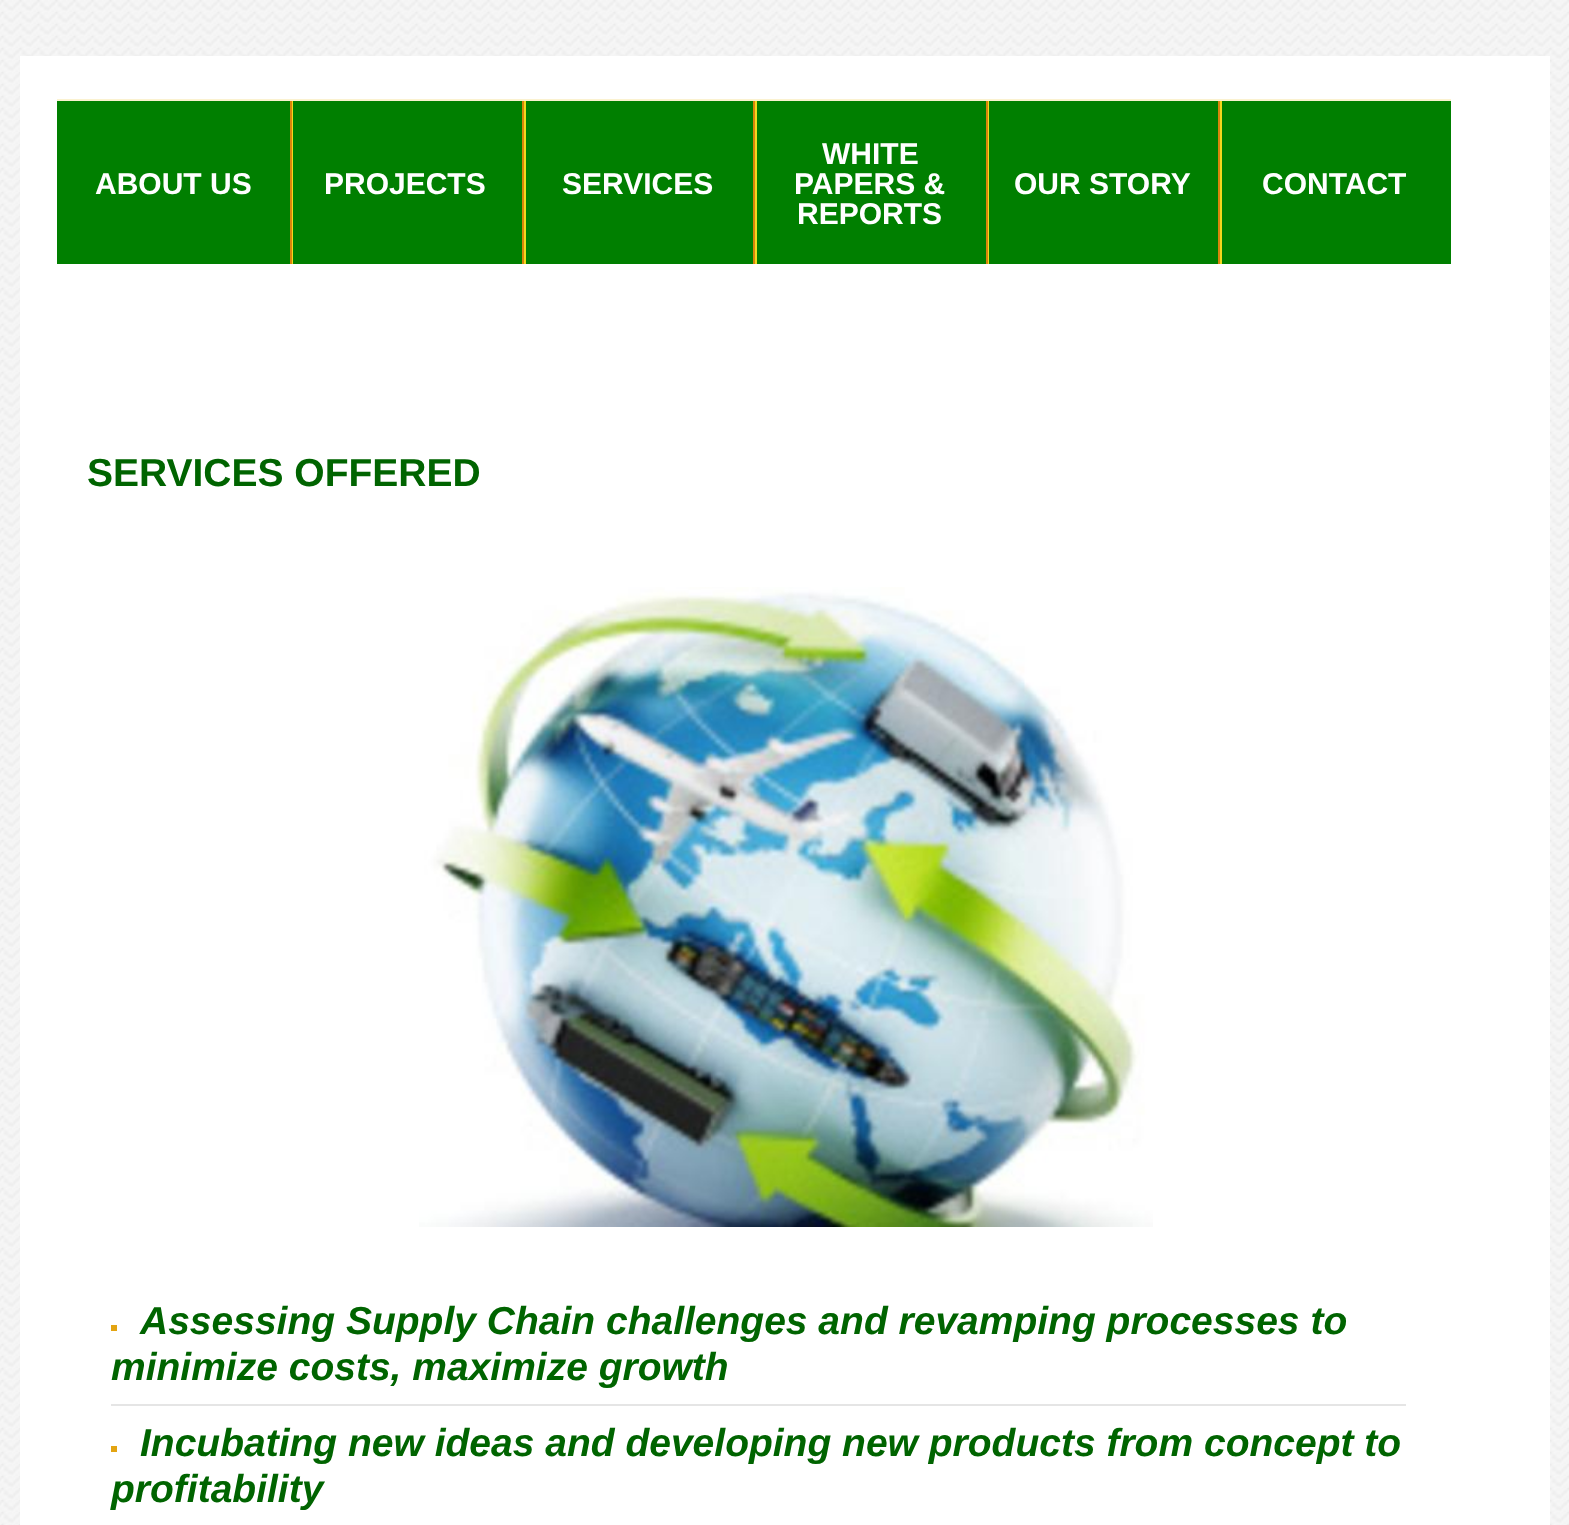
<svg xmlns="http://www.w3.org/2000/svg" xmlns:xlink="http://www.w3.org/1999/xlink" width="1569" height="1525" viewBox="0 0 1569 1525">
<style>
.cls-1{font:bold 30px Liberation Sans;fill:#ffffff}
.cls-2{font:bold 39px Liberation Sans;fill:#006400}
.cls-3{font:italic bold 39px Liberation Sans;fill:#006400}
</style>
<rect width="100%" height="100%" fill="#ffffff"/>
<image xlink:href="image0.png" x="0" y="0" width="1569" height="1525"/>
<rect fill="#ffffff" x="20" y="56" width="1530" height="1469"/>
<rect fill="#fbf2d0" x="57" y="99" width="1394" height="2"/>
<rect fill="#007f00" x="57" y="101" width="233" height="163"/>
<rect fill="#007f00" x="293" y="101" width="229" height="163"/>
<rect fill="#f3d71d" x="292" y="101" width="1" height="163"/>
<rect fill="#d9850c" x="290" y="101" width="2" height="163"/>
<rect fill="#007f00" x="526" y="101" width="227" height="163"/>
<rect fill="#f3d71d" x="524" y="101" width="2" height="163"/>
<rect fill="#d9850c" x="522" y="101" width="2" height="163"/>
<rect fill="#007f00" x="757" y="101" width="229" height="163"/>
<rect fill="#f3d71d" x="755" y="101" width="2" height="163"/>
<rect fill="#d9850c" x="753" y="101" width="2" height="163"/>
<rect fill="#007f00" x="989" y="101" width="229" height="163"/>
<rect fill="#f3d71d" x="988" y="101" width="1" height="163"/>
<rect fill="#d9850c" x="986" y="101" width="2" height="163"/>
<rect fill="#007f00" x="1222" y="101" width="229" height="163"/>
<rect fill="#f3d71d" x="1220" y="101" width="2" height="163"/>
<rect fill="#d9850c" x="1218" y="101" width="2" height="163"/>
<image xlink:href="image1.png" x="419" y="587" width="734" height="640"/>
<rect fill="#e3a412" x="111" y="1325" width="6" height="6"/>
<rect fill="#e5e5e5" x="111" y="1404" width="1295" height="2"/>
<rect fill="#e3a412" x="111" y="1446" width="6" height="6"/>
<text class="cls-1" x="95" y="194">ABOUT US</text>
<text class="cls-1" x="324" y="194">PROJECTS</text>
<text class="cls-1" x="562" y="194">SERVICES</text>
<text class="cls-1" x="822" y="164">WHITE</text>
<text class="cls-1" x="794" y="194">PAPERS &amp;</text>
<text class="cls-1" x="797" y="224">REPORTS</text>
<text class="cls-1" x="1014" y="194">OUR STORY</text>
<text class="cls-1" x="1262" y="194">CONTACT</text>
<text class="cls-2" x="87" y="486">SERVICES OFFERED</text>
<text class="cls-3" x="140" y="1334">Assessing Supply Chain challenges and revamping processes to</text>
<text class="cls-3" x="111" y="1380">minimize costs, maximize growth</text>
<text class="cls-3" x="140" y="1456">Incubating new ideas and developing new products from concept to</text>
<text class="cls-3" x="111" y="1502">profitability</text>
</svg>
